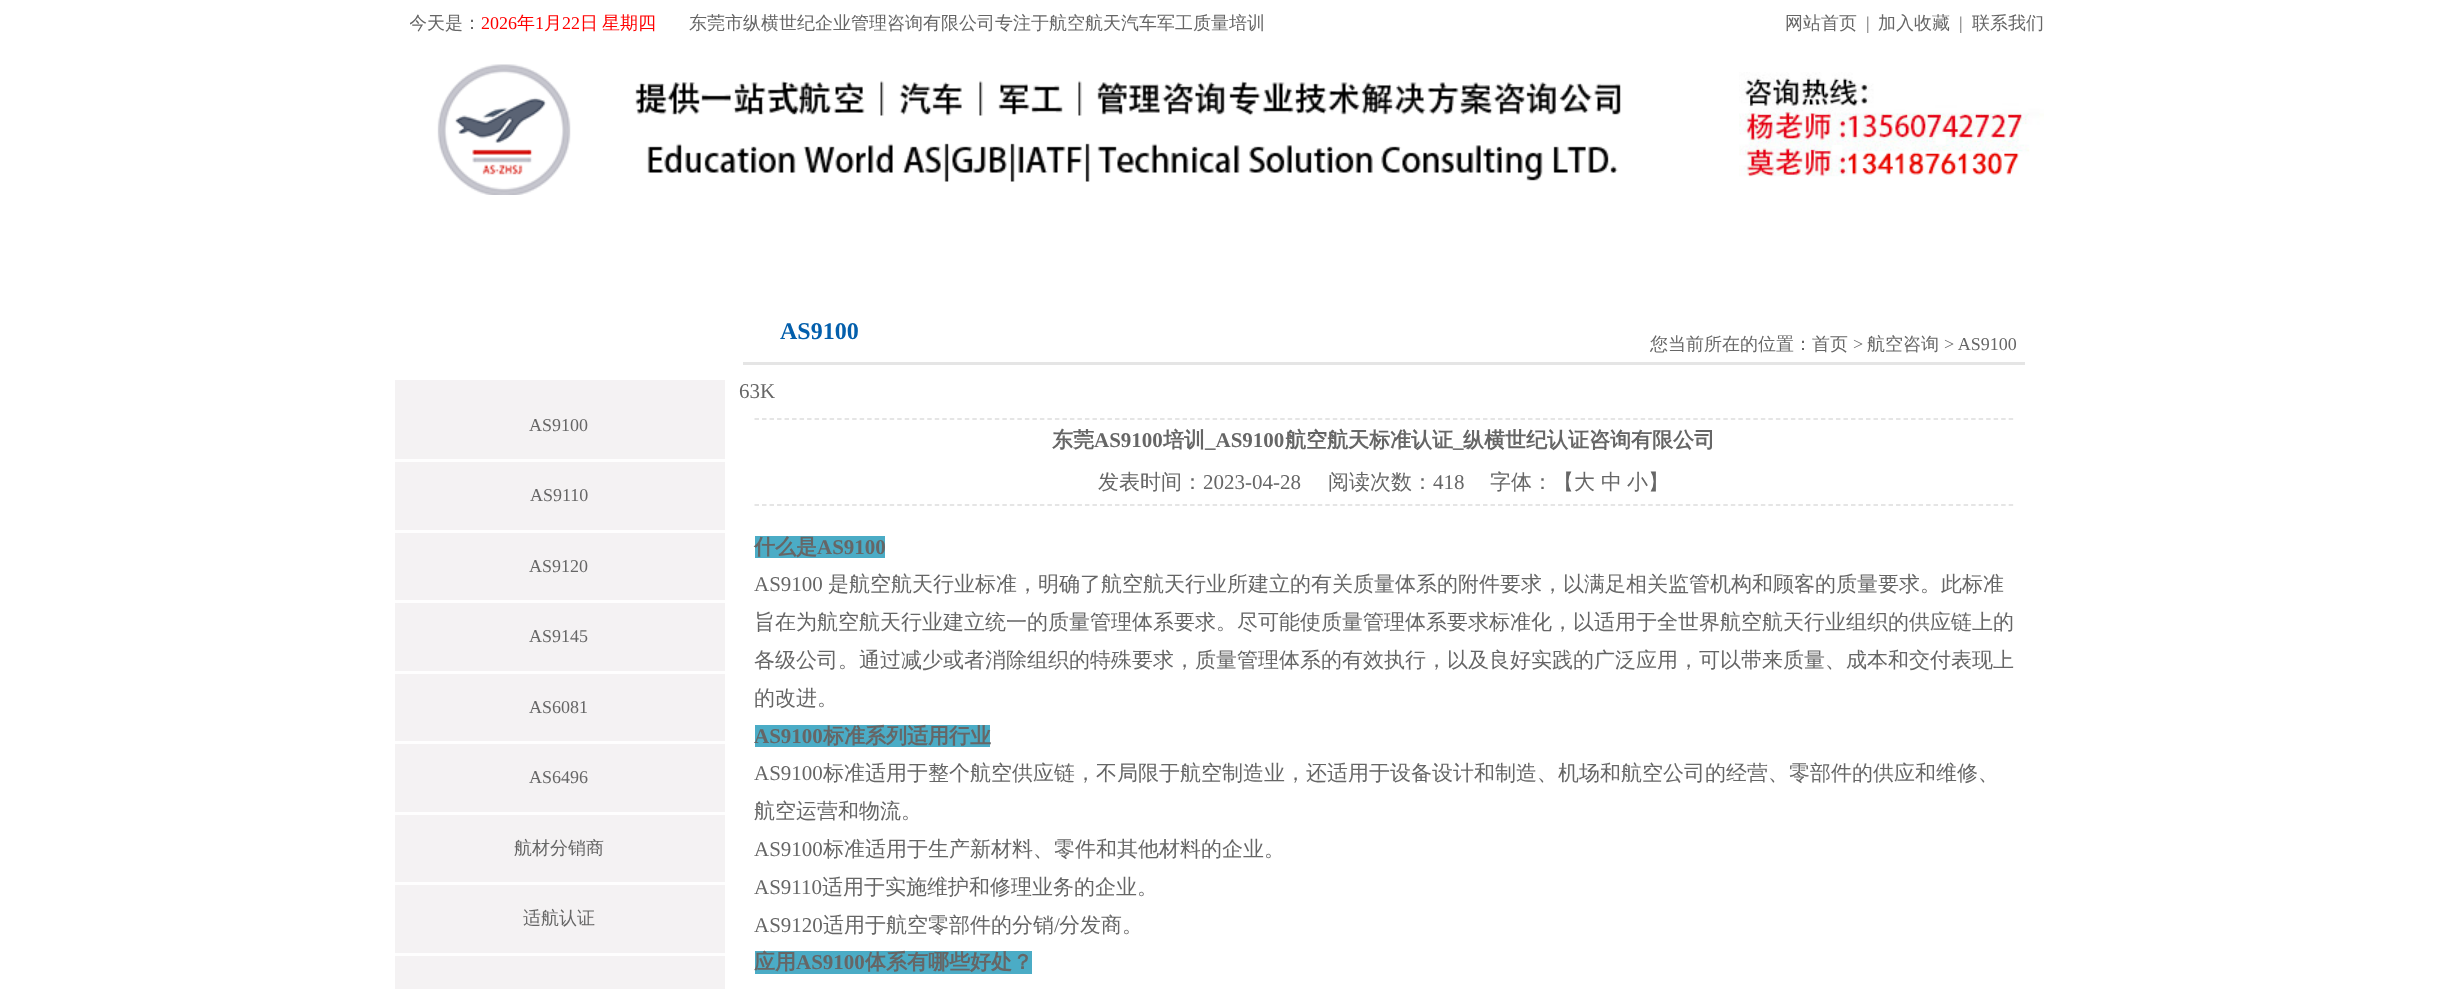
<svg xmlns="http://www.w3.org/2000/svg" xmlns:xlink="http://www.w3.org/1999/xlink" width="2437" height="989" viewBox="0 0 2437 989">
<style>
.cls-1{font:500 18px WenQuanYi Zen Hei;fill:#666666}
.cls-2{font:18px Liberation Serif;fill:#ff0000}
.cls-3{font:500 18px WenQuanYi Zen Hei;fill:#ff0000}
.cls-4{font:18px Liberation Serif;fill:#666666}
.cls-5{font:bold 24px Liberation Serif;fill:#035fac}
.cls-6{font:21px Liberation Serif;fill:#666666}
.cls-7{font:bold 21px WenQuanYi Zen Hei;fill:#666666}
.cls-8{font:bold 21px Liberation Serif;fill:#666666}
.cls-9{font:500 21px WenQuanYi Zen Hei;fill:#666666}
</style>
<defs>
<clipPath id="clip1"><rect x="410" y="0" width="1005" height="45"/></clipPath>
</defs>
<rect width="100%" height="100%" fill="#ffffff"/>
<image xlink:href="image0.png" x="437" y="64" width="1184" height="131"/>
<image xlink:href="image1.png" x="1739" y="72" width="305" height="105"/>
<rect fill="#f4f2f3" x="395" y="380" width="330" height="609"/>
<rect fill="#fefefe" x="395" y="459" width="330" height="3"/>
<rect fill="#fefefe" x="395" y="530" width="330" height="3"/>
<rect fill="#fefefe" x="395" y="600" width="330" height="3"/>
<rect fill="#fefefe" x="395" y="671" width="330" height="3"/>
<rect fill="#fefefe" x="395" y="741" width="330" height="3"/>
<rect fill="#fefefe" x="395" y="812" width="330" height="3"/>
<rect fill="#fefefe" x="395" y="882" width="330" height="3"/>
<rect fill="#fefefe" x="395" y="953" width="330" height="3"/>
<rect fill="#e5e5e5" x="743" y="362" width="1282" height="3"/>
<path fill="none" stroke="#dddddd" stroke-width="1.5" stroke-dasharray="4.5 3.01" d="M754.5 419H2014.5"/>
<path fill="none" stroke="#dddddd" stroke-width="1.5" stroke-dasharray="4.5 3.01" d="M754.5 505H2014.5"/>
<rect fill="#4bacc6" x="755" y="536" width="130" height="22"/>
<rect fill="#4bacc6" x="755" y="725" width="235" height="22"/>
<rect fill="#4bacc6" x="755" y="951" width="277" height="23"/>
<g clip-path="url(#clip1)">
<text class="cls-1" x="409" y="29">今天是：</text>
</g>
<text class="cls-2" x="481" y="29">2026</text>
<text class="cls-3" x="517" y="29">年</text>
<text class="cls-2" x="535" y="29">1</text>
<text class="cls-3" x="544" y="29">月</text>
<text class="cls-2" x="562" y="29">22</text>
<text class="cls-3" x="580" y="29">日</text>
<text class="cls-3" x="602" y="29">星期四</text>
<text class="cls-1" x="689" y="29">东莞市纵横世纪企业管理咨询有限公司专注于航空航天汽车军工质量培训</text>
<text class="cls-1" x="1785" y="29">网站首页</text>
<text class="cls-4" x="1866" y="29">|</text>
<text class="cls-1" x="1878" y="29">加入收藏</text>
<text class="cls-4" x="1959" y="29">|</text>
<text class="cls-1" x="1972" y="29">联系我们</text>
<text class="cls-4" x="529" y="431">AS9100</text>
<text class="cls-4" x="530" y="501">AS9110</text>
<text class="cls-4" x="529" y="572">AS9120</text>
<text class="cls-4" x="529" y="642">AS9145</text>
<text class="cls-4" x="529" y="713">AS6081</text>
<text class="cls-4" x="529" y="783">AS6496</text>
<text class="cls-1" x="514" y="854">航材分销商</text>
<text class="cls-1" x="523" y="924">适航认证</text>
<text class="cls-5" x="780" y="339">AS9100</text>
<text class="cls-1" x="1650" y="350">您当前所在的位置：首页</text>
<text class="cls-4" x="1853" y="350">&gt;</text>
<text class="cls-1" x="1867" y="350">航空咨询</text>
<text class="cls-4" x="1944" y="350">&gt; AS9100</text>
<text class="cls-6" x="739" y="398">63K</text>
<text class="cls-7" x="1052" y="447">东莞</text>
<text class="cls-8" x="1094" y="447">AS9100</text>
<text class="cls-7" x="1163" y="447">培训</text>
<text class="cls-8" x="1205" y="447">_AS9100</text>
<text class="cls-7" x="1285" y="447">航空航天标准认证</text>
<text class="cls-8" x="1453" y="447">_</text>
<text class="cls-7" x="1463" y="447">纵横世纪认证咨询有限公司</text>
<text class="cls-9" x="1098" y="489">发表时间：</text>
<text class="cls-6" x="1203" y="489">2023-04-28</text>
<text class="cls-9" x="1328" y="489">阅读次数：</text>
<text class="cls-6" x="1433" y="489">418</text>
<text class="cls-9" x="1490" y="489">字体：【大</text>
<text class="cls-9" x="1601" y="489">中</text>
<text class="cls-9" x="1627" y="489">小】</text>
<text class="cls-7" x="754" y="554">什么是</text>
<text class="cls-8" x="817" y="554">AS9100</text>
<text class="cls-6" x="754" y="591">AS9100</text>
<text class="cls-9" x="828" y="591">是航空航天行业标准，明确了航空航天行业所建立的有关质量体系的附件要求，以满足相关监管机构和顾客的质量要求。此标准</text>
<text class="cls-9"><tspan x="754" y="629">旨在为航空航天行业建立统一的质量管理体系要求。尽可能使质量管理体系要求标准化，以适用于全世界航空航天行业组织的供应链上的</tspan><tspan x="754" y="667">各级公司。通过减少或者消除组织的特殊要求，质量管理体系的有效执行，以及良好实践的广泛应用，可以带来质量、成本和交付表现上</tspan><tspan x="754" y="705">的改进。</tspan></text>
<text class="cls-8" x="754" y="743">AS9100</text>
<text class="cls-7" x="823" y="743">标准系列适用行业</text>
<text class="cls-6" x="754" y="780">AS9100</text>
<text class="cls-9" x="823" y="780">标准适用于整个航空供应链，不局限于航空制造业，还适用于设备设计和制造、机场和航空公司的经营、零部件的供应和维修、</text>
<text class="cls-9" x="754" y="818">航空运营和物流。</text>
<text class="cls-6" x="754" y="856">AS9100</text>
<text class="cls-9" x="823" y="856">标准适用于生产新材料、零件和其他材料的企业。</text>
<text class="cls-6" x="754" y="894">AS9110</text>
<text class="cls-9" x="822" y="894">适用于实施维护和修理业务的企业。</text>
<text class="cls-6" x="754" y="932">AS9120</text>
<text class="cls-9" x="823" y="932">适用于航空零部件的分销</text>
<text class="cls-6" x="1054" y="932">/</text>
<text class="cls-9" x="1059" y="932">分发商。</text>
<text class="cls-7" x="754" y="969">应用</text>
<text class="cls-8" x="796" y="969">AS9100</text>
<text class="cls-7" x="865" y="969">体系有哪些好处？</text>
</svg>
